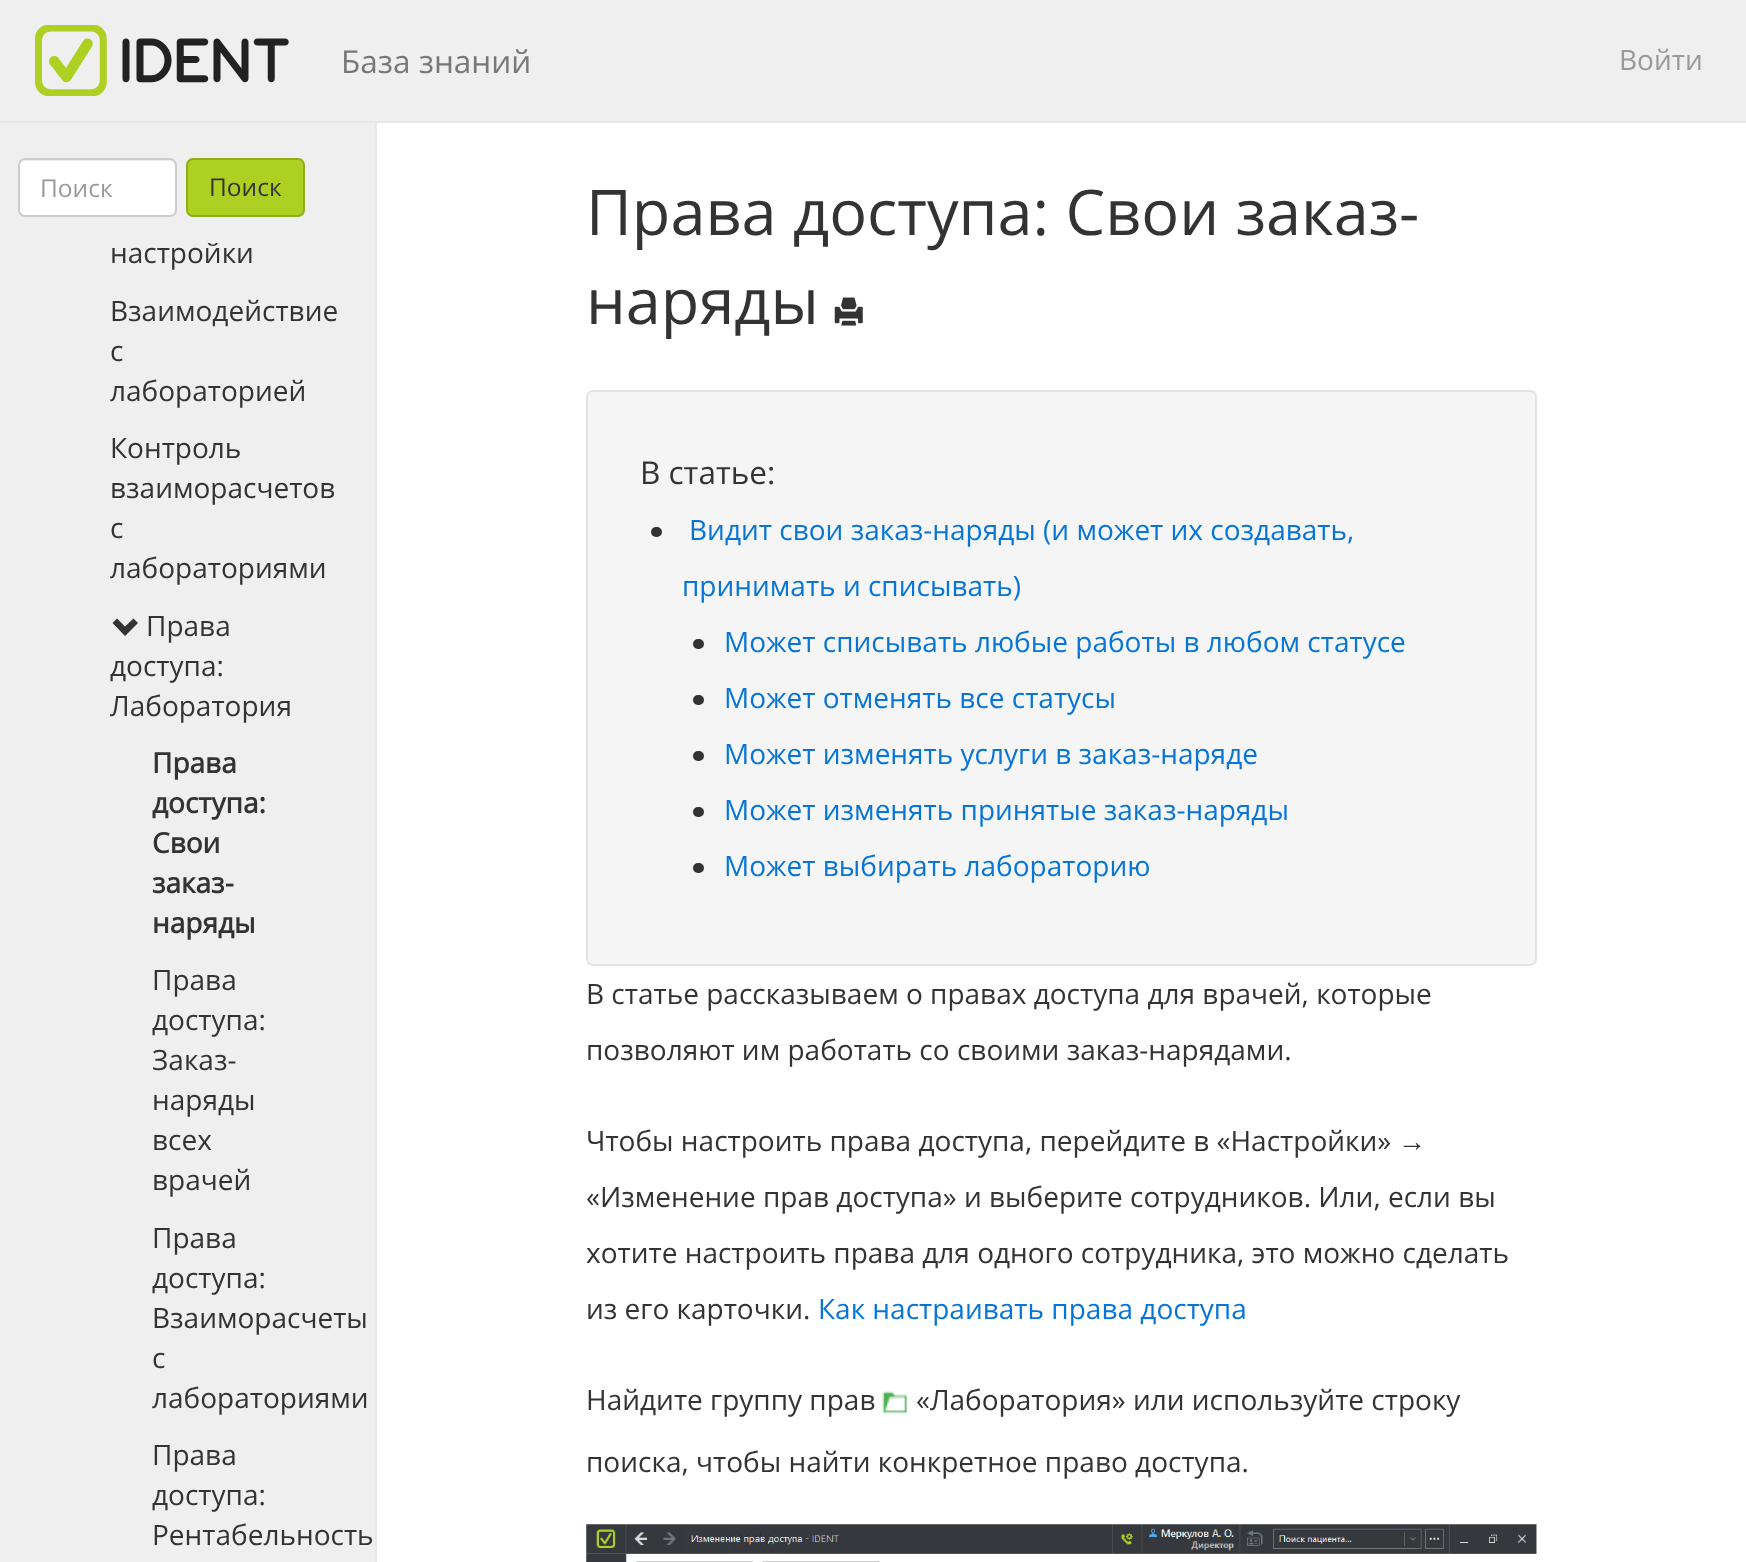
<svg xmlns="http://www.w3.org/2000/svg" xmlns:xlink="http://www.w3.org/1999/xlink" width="1746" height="1562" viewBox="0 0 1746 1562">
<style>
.cls-1{font:31.5px Open Sans;fill:#777777}
.cls-2{font:28px Open Sans;fill:#999999}
.cls-3{font:24.5px Open Sans;fill:#999999}
.cls-4{font:24.5px Open Sans;fill:#333333}
.cls-5{font:28px Open Sans;fill:#333333}
.cls-6{font:bold 28px Open Sans;fill:#333333}
.cls-7{font:63px Open Sans;fill:#333333}
.cls-8{font:31.5px Open Sans;fill:#333333}
.cls-9{font:28px Open Sans;fill:#0675d7}
.cls-10{font:28px Liberation Sans;fill:#333333}
</style>
<rect width="100%" height="100%" fill="#ffffff"/>
<rect fill="#efefef" x="0" y="0" width="1746" height="121"/>
<rect fill="#e7e7e7" x="0" y="121" width="1746" height="2"/>
<image xlink:href="image0.png" x="35" y="25" width="254" height="71"/>
<rect fill="#efefef" x="0" y="123" width="375" height="1439"/>
<rect fill="#e7e7e7" x="375" y="123" width="2" height="1439"/>
<rect fill="#ffffff" x="18" y="158" width="159" height="59" rx="7"/>
<path fill="#ececec" d="M24 161H170C173 161 175 163 175 166V164C175 161 173 159 170 159H24C21 159 19 161 19 164V166C19 163 22 161 24 161Z"/>
<rect fill="none" stroke="#cccccc" stroke-width="2" x="19" y="159" width="157" height="57" rx="6"/>
<rect fill="#add022" stroke="#8fad19" stroke-width="2" x="187" y="159" width="117" height="57" rx="6"/>
<path fill="#333333" d="M125 636L112.5 623L117 618.5L125 626.5L133.5 618.5L138 623Z"/>
<image xlink:href="image1.png" x="834" y="297" width="29" height="29"/>
<rect fill="#f5f5f5" stroke="#e3e3e3" stroke-width="2" x="587" y="391" width="949" height="574" rx="6"/>
<rect fill="#333333" x="651" y="527" width="11" height="10" rx="5"/>
<rect fill="#333333" x="693" y="639" width="11" height="10" rx="5"/>
<rect fill="#333333" x="693" y="695" width="11" height="10" rx="5"/>
<rect fill="#333333" x="693" y="751" width="11" height="10" rx="5"/>
<rect fill="#333333" x="693" y="807" width="11" height="10" rx="5"/>
<rect fill="#333333" x="693" y="863" width="11" height="10" rx="5"/>
<image xlink:href="image2.png" x="882" y="1391" width="26" height="24"/>
<image xlink:href="image3.png" x="586" y="1524" width="951" height="38"/>
<text class="cls-1" x="341" y="73">База знаний</text>
<text class="cls-2" x="1619" y="70">Войти</text>
<text class="cls-3" x="40" y="197">Поиск</text>
<text class="cls-4" x="209" y="196">Поиск</text>
<text class="cls-5" x="110" y="263">настройки</text>
<rect fill="#efefef" x="208" y="241" width="11" height="2"/>
<text class="cls-5"><tspan x="110" y="321">Взаимодействие</tspan><tspan x="110" y="361">с</tspan><tspan x="110" y="401">лабораторией</tspan></text>
<text class="cls-5"><tspan x="110" y="458">Контроль</tspan><tspan x="110" y="498">взаиморасчетов</tspan><tspan x="110" y="538">с</tspan><tspan x="110" y="578">лабораториями</tspan></text>
<text class="cls-5" x="146" y="636">Права</text>
<text class="cls-5"><tspan x="110" y="676">доступа:</tspan><tspan x="110" y="716">Лаборатория</tspan></text>
<text class="cls-6"><tspan x="152" y="773">Права</tspan><tspan x="152" y="813">доступа:</tspan><tspan x="152" y="853">Свои</tspan><tspan x="152" y="893">заказ-</tspan><tspan x="152" y="933">наряды</tspan></text>
<text class="cls-5"><tspan x="152" y="990">Права</tspan><tspan x="152" y="1030">доступа:</tspan><tspan x="152" y="1070">Заказ-</tspan><tspan x="152" y="1110">наряды</tspan><tspan x="152" y="1150">всех</tspan><tspan x="152" y="1190">врачей</tspan></text>
<text class="cls-5"><tspan x="152" y="1248">Права</tspan><tspan x="152" y="1288">доступа:</tspan><tspan x="152" y="1328">Взаиморасчеты</tspan><tspan x="152" y="1368">с</tspan><tspan x="152" y="1408">лабораториями</tspan></text>
<text class="cls-5"><tspan x="152" y="1465">Права</tspan><tspan x="152" y="1505">доступа:</tspan><tspan x="152" y="1545">Рентабельность</tspan></text>
<text class="cls-7"><tspan x="586" y="235">Права доступа: Свои заказ-</tspan><tspan x="586" y="324">наряды</tspan></text>
<text class="cls-8" x="640" y="484">В статье:</text>
<text class="cls-9" x="689" y="540">Видит свои заказ-наряды (и может их создавать,</text>
<text class="cls-9" x="682" y="596">принимать и списывать)</text>
<text class="cls-9" x="724" y="652">Может списывать любые работы в любом статусе</text>
<text class="cls-9" x="724" y="708">Может отменять все статусы</text>
<text class="cls-9" x="724" y="764">Может изменять услуги в заказ-наряде</text>
<text class="cls-9" x="724" y="820">Может изменять принятые заказ-наряды</text>
<text class="cls-9" x="724" y="876">Может выбирать лабораторию</text>
<text class="cls-5" x="586" y="1004">В статье рассказываем о правах доступа для врачей, которые</text>
<text class="cls-5" x="586" y="1060">позволяют им работать со своими заказ-нарядами.</text>
<text class="cls-5" x="586" y="1151">Чтобы настроить права доступа, перейдите в «Настройки»</text>
<text class="cls-10" x="1398" y="1151">→</text>
<text class="cls-5" x="586" y="1207">«Изменение прав доступа» и выберите сотрудников. Или, если вы</text>
<text class="cls-5" x="586" y="1263">хотите настроить права для одного сотрудника, это можно сделать</text>
<text class="cls-5" x="586" y="1319">из его карточки.</text>
<text class="cls-9" x="818" y="1319">Как настраивать права доступа</text>
<text class="cls-5" x="586" y="1410">Найдите группу прав</text>
<text class="cls-5" x="916" y="1410">«Лаборатория» или используйте строку</text>
<text class="cls-5" x="586" y="1472">поиска, чтобы найти конкретное право доступа.</text>
</svg>
